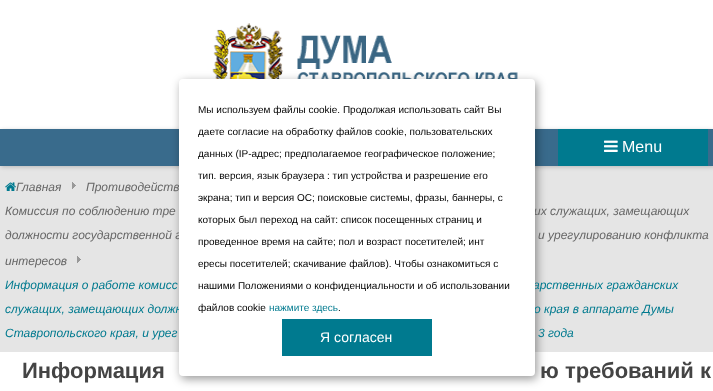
<svg xmlns="http://www.w3.org/2000/svg" xmlns:xlink="http://www.w3.org/1999/xlink" width="713" height="391" viewBox="0 0 713 391">
<style>
.cls-1{font:16px Liberation Sans;fill:#ffffff}
.cls-2{font:italic 12px Liberation Sans;fill:#666666}
.cls-3{font:italic 12px Liberation Sans;fill:#007a8f}
.cls-4{font:14px Liberation Sans;fill:#ffffff}
.cls-5{font:10px Liberation Sans;fill:#000000}
.cls-6{font:10px Liberation Sans;fill:#007a8f}
.cls-7{font:bold 22px Liberation Sans;fill:#444444}
</style>
<rect width="100%" height="100%" fill="#ffffff"/>
<image xlink:href="image0.png" x="212" y="23" width="306" height="56"/>
<rect fill="#e5e5e5" x="0" y="166" width="713" height="186"/>
<rect fill="#000000" fill-opacity="0.2" filter="blur(2px)" x="1" y="130" width="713" height="37"/>
<rect fill="#396b8c" x="0" y="129" width="713" height="37"/>
<rect fill="#000000" fill-opacity="0.4" filter="blur(5px)" x="181" y="82" width="356" height="297" rx="4"/>
<rect fill="#007a8f" x="558" y="129" width="150" height="37"/>
<image xlink:href="image1.png" x="604" y="140" width="14" height="12"/>
<image xlink:href="image2.png" x="5" y="182" width="11" height="9"/>
<image xlink:href="image3.png" x="72" y="182" width="4" height="7"/>
<image xlink:href="image3.png" x="77" y="256" width="4" height="7"/>
<text class="cls-1" x="622" y="152">Menu</text>
<text class="cls-2" x="16" y="191">Главная</text>
<text class="cls-2" x="86" y="191">Противодейств</text>
<text class="cls-2" x="5" y="215">Комиссия по соблюдению тре</text>
<text class="cls-2" x="534" y="215">их служащих, замещающих</text>
<text class="cls-2" x="5" y="239">должности государственной г</text>
<text class="cls-2" x="538" y="239">и урегулированию конфликта</text>
<text class="cls-2" x="5" y="265">интересов</text>
<text class="cls-3" x="5" y="289">Информация о работе комисс</text>
<text class="cls-3" x="533" y="289">арственных гражданских</text>
<text class="cls-3" x="5" y="313">служащих, замещающих должн</text>
<text class="cls-3" x="534" y="313">о края в аппарате Думы</text>
<rect fill="#ffffff" x="179" y="79" width="356" height="297" rx="4"/>
<rect fill="#007a8f" x="282" y="319" width="150" height="37"/>
<text class="cls-4" x="320" y="342">Я согласен</text>
<text class="cls-5" x="338" y="311">.</text>
<text class="cls-6" x="269" y="311">нажмите здесь</text>
<text class="cls-5" x="198" y="311">файлов cookie</text>
<text class="cls-5" x="198" y="289">нашими Положениями о конфиденциальности и об использовании</text>
<text class="cls-5" x="198" y="267">ересы посетителей; скачивание файлов). Чтобы ознакомиться с</text>
<text class="cls-5" x="198" y="245">проведенное время на сайте; пол и возраст посетителей; инт</text>
<text class="cls-5" x="198" y="223">которых был переход на сайт: список посещенных страниц и</text>
<text class="cls-5" x="198" y="201">экрана; тип и версия ОС; поисковые системы, фразы, баннеры, с</text>
<text class="cls-5" x="198" y="179">тип. версия, язык браузера : тип устройства и разрешение его</text>
<text class="cls-5" x="198" y="157">данных (IP-адрес; предполагаемое географическое положение;</text>
<text class="cls-5" x="198" y="135">даете согласие на обработку файлов cookie, пользовательских</text>
<text class="cls-5" x="198" y="113">Мы используем файлы cookie. Продолжая использовать сайт Вы</text>
<text class="cls-3" x="5" y="337">Ставропольского края, и урег</text>
<text class="cls-3" x="538" y="337">3 года</text>
<text class="cls-7" x="22" y="378">Информация</text>
<text class="cls-7" x="540" y="378">ю требований к</text>
</svg>
